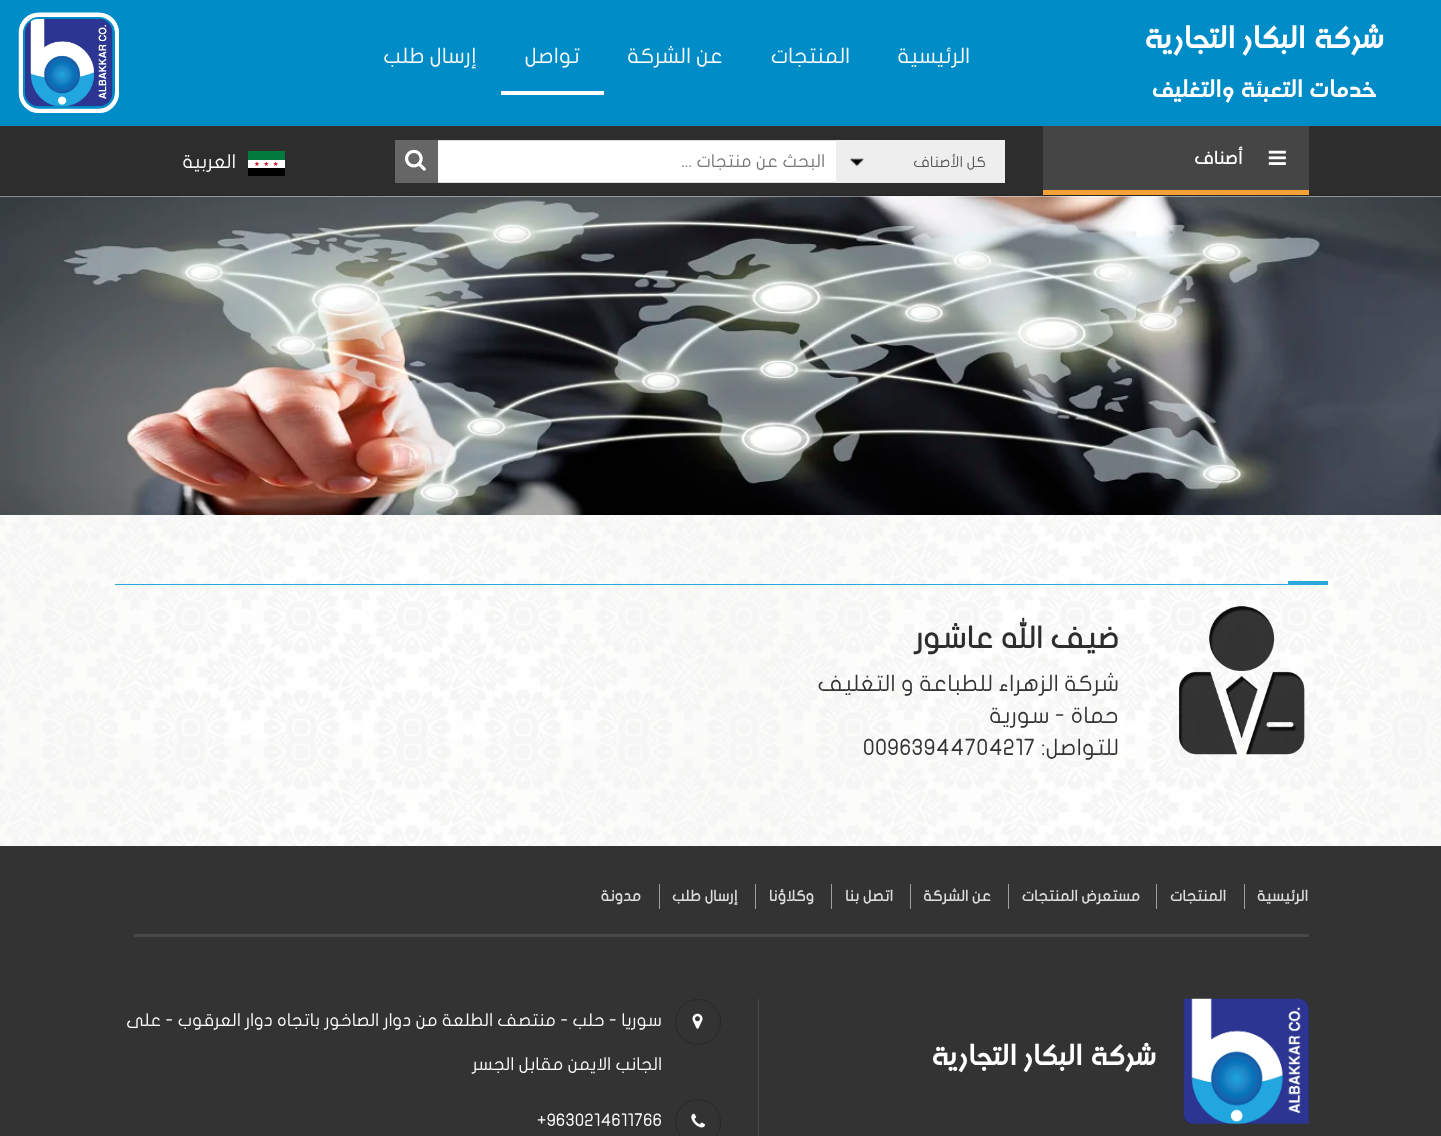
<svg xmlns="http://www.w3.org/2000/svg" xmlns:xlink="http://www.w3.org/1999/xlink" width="1441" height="1136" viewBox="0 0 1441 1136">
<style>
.cls-1{font:40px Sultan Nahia;direction:rtl;fill:#ffffff}
.cls-2{font:31.25px Sultan Nahia;direction:rtl;fill:#ffffff}
.cls-3{font:21.25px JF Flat;direction:rtl;fill:#ffffff}
.cls-4{font:bold 17.5px JF Flat;direction:rtl;fill:#ffffff}
.cls-5{font:15px JF Flat;direction:rtl;fill:#565656}
.cls-6{font:17.5px JF Flat;direction:rtl;fill:#757575}
.cls-7{font:19px JF Flat;direction:rtl;fill:#ffffff}
.cls-8{font:bold 30px JF Flat;direction:rtl;fill:#2d2d2d}
.cls-9{font:22.5px JF Flat;direction:rtl;fill:#333333}
.cls-10{font:22.5px JF Flat;fill:#333333}
.cls-11{font:bold 15px JF Flat;direction:rtl;fill:#dddddd}
.cls-12{font:37.5px Sultan Nahia;direction:rtl;fill:#ffffff}
.cls-13{font:17.5px JF Flat;direction:rtl;fill:#ffffff}
.cls-14{font:17.5px JF Flat;fill:#ffffff}
</style>
<rect width="100%" height="100%" fill="#ffffff"/>
<image xlink:href="image0.png" x="0" y="196" width="1441" height="650"/>
<rect fill="#008dc7" x="0" y="0" width="1441" height="126"/>
<rect fill="#ffffff" x="501" y="91" width="103" height="4"/>
<rect fill="none" stroke="#ffffff" stroke-width="4" x="21" y="15" width="96" height="96" rx="18"/>
<image xlink:href="image1.png" x="18" y="12" width="101" height="101"/>
<rect fill="#2d2d2d" x="0" y="126" width="1441" height="69"/>
<rect fill="#454545" x="1043" y="126" width="266" height="64"/>
<rect fill="#f4a137" x="1043" y="190" width="266" height="5"/>
<image xlink:href="image2.png" x="1268" y="150" width="18" height="15"/>
<rect fill="#ffffff" x="438" y="141" width="398" height="41"/>
<rect fill="none" stroke="#dddddd" x="395.5" y="140.5" width="609" height="42"/>
<rect fill="#eeeeee" x="836" y="140" width="169" height="43"/>
<image xlink:href="image3.png" x="850" y="158" width="14" height="9"/>
<rect fill="#666666" x="395" y="140" width="43" height="43"/>
<image xlink:href="image4.png" x="405" y="149" width="21" height="22"/>
<image xlink:href="image5.png" x="248" y="151" width="37" height="25"/>
<rect fill="#262626" x="0" y="195" width="1441" height="1"/>
<image xlink:href="image6.png" x="0" y="196" width="1441" height="319"/>
<rect fill="#2ba8db" x="115" y="584" width="1213" height="1"/>
<rect fill="#2ba8db" x="1288" y="581" width="40" height="3"/>
<image xlink:href="image7.png" x="1179" y="606" width="126" height="149"/>
<rect fill="#333333" x="0" y="846" width="1441" height="290"/>
<rect fill="#484848" x="134" y="934" width="1175" height="3"/>
<rect fill="#9f9f9f" x="1244" y="884" width="1" height="25"/>
<rect fill="#9f9f9f" x="1156" y="884" width="1" height="25"/>
<rect fill="#9f9f9f" x="1008" y="884" width="1" height="25"/>
<rect fill="#9f9f9f" x="910" y="884" width="1" height="25"/>
<rect fill="#9f9f9f" x="831" y="884" width="1" height="25"/>
<rect fill="#9f9f9f" x="755" y="884" width="1" height="25"/>
<rect fill="#9f9f9f" x="659" y="884" width="1" height="25"/>
<image xlink:href="image8.png" x="1183" y="998" width="126" height="126"/>
<rect fill="#484848" x="758" y="999" width="1" height="137"/>
<circle fill="none" stroke="#282828" cx="698" cy="1022" r="22.5"/>
<image xlink:href="image9.png" x="692" y="1013" width="11" height="16"/>
<circle fill="none" stroke="#282828" cx="698" cy="1122" r="22.5"/>
<image xlink:href="image10.png" x="691" y="1113" width="14" height="15"/>
<text class="cls-1" x="1385" y="48">شركة البكار التجارية</text>
<text class="cls-2" x="1377" y="97">خدمات التعبئة والتغليف</text>
<text class="cls-3" x="970" y="63">الرئيسية</text>
<text class="cls-3" x="850" y="63">المنتجات</text>
<text class="cls-3" x="723" y="63">عن الشركة</text>
<text class="cls-3" x="580" y="63">تواصل</text>
<text class="cls-3" x="477" y="63">إرسال طلب</text>
<text class="cls-4" x="1243" y="164">أصناف</text>
<text class="cls-5" x="986" y="167">كل الأصناف</text>
<text class="cls-6" x="825" y="167">البحث عن منتجات ...</text>
<text class="cls-7" x="236" y="168">العربية</text>
<text class="cls-8" x="1119" y="648">ضيف الله عاشور</text>
<text class="cls-9"><tspan x="1119" y="691">شركة الزهراء للطباعة و التغليف</tspan><tspan x="1119" y="723">حماة - سورية</tspan><tspan x="1119" y="755">للتواصل:</tspan></text>
<text class="cls-10" x="863" y="755">00963944704217</text>
<text class="cls-11" x="1308" y="901">الرئيسية</text>
<text class="cls-11" x="1226" y="901">المنتجات</text>
<text class="cls-11" x="1140" y="901">مستعرض المنتجات</text>
<text class="cls-11" x="991" y="901">عن الشركة</text>
<text class="cls-11" x="893" y="901">اتصل بنا</text>
<text class="cls-11" x="814" y="901">وكلاؤنا</text>
<text class="cls-11" x="738" y="901">إرسال طلب</text>
<text class="cls-11" x="641" y="901">مدونة</text>
<text class="cls-12" x="1157" y="1065">شركة البكار التجارية</text>
<text class="cls-13" x="662" y="1026">سوريا - حلب - منتصف الطلعة من دوار الصاخور باتجاه دوار العرقوب - على</text>
<text class="cls-13" x="662" y="1070">الجانب الايمن مقابل الجسر</text>
<text class="cls-14" x="537" y="1126">+9630214611766</text>
</svg>
